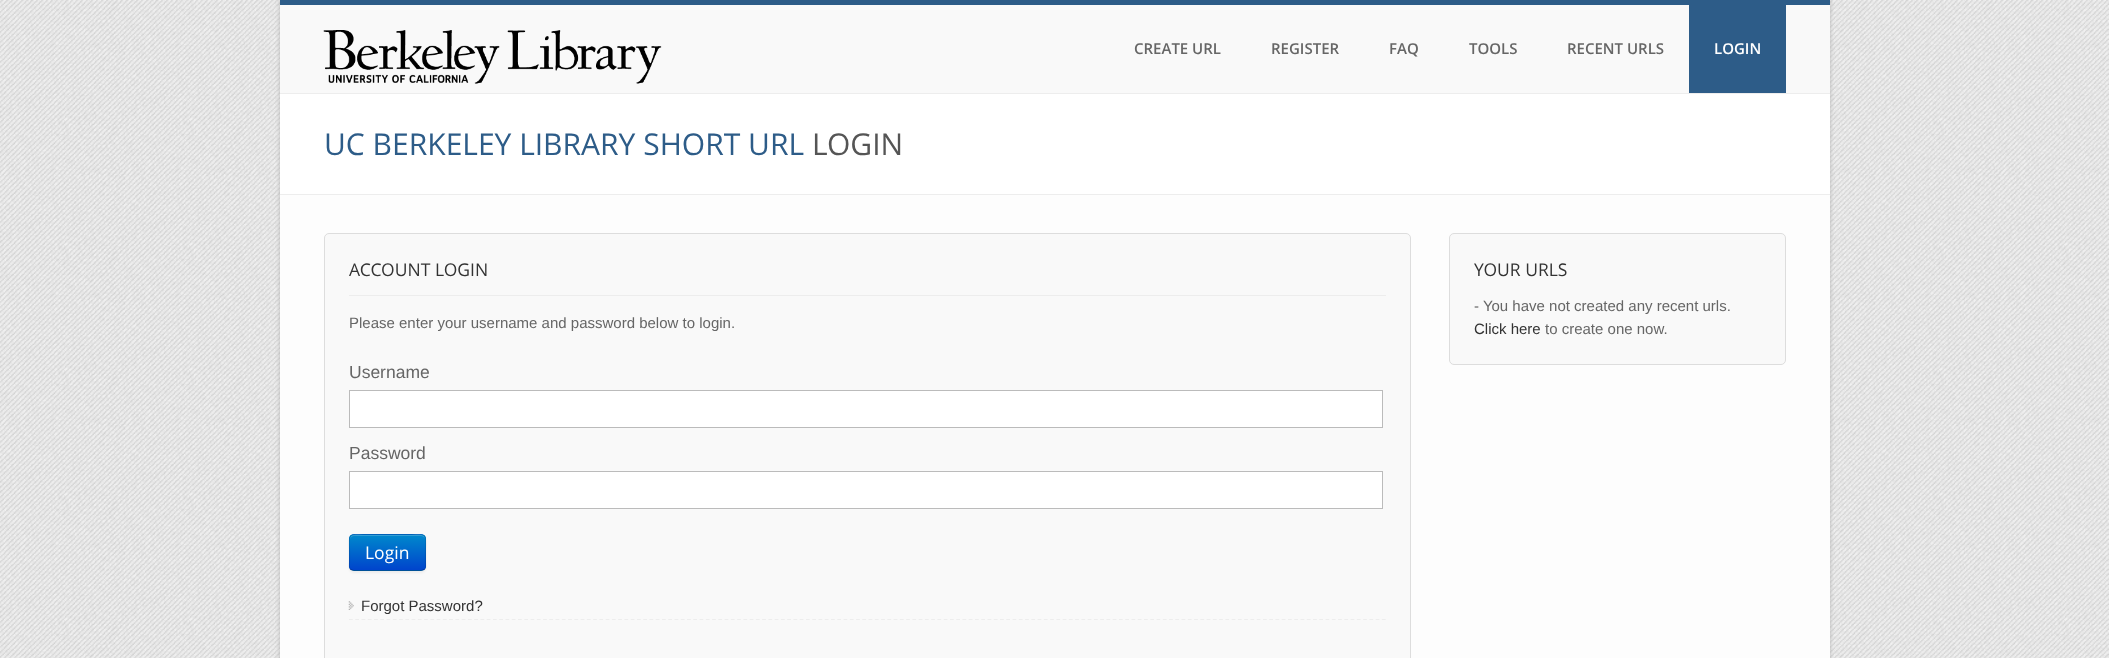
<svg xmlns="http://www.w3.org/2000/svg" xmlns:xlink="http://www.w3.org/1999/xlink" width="2109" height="658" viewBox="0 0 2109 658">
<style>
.cls-1{font:600 15px Open Sans;fill:#666666}
.cls-2{font:600 15px Open Sans;fill:#ffffff}
.cls-3{font:30px Open Sans;fill:#2d5c88}
.cls-4{font:30px Open Sans;fill:#555555}
.cls-5{font:17.5px Open Sans;fill:#333333}
.cls-6{font:15px Liberation Sans;fill:#666666}
.cls-7{font:17.5px Liberation Sans;fill:#666666}
.cls-8{font:17.5px Open Sans;fill:#ffffff}
.cls-9{font:15px Liberation Sans;fill:#333333}
</style>
<defs>
<clipPath id="clip1"><rect x="349" y="534" width="77" height="37" rx="5"/></clipPath>
<linearGradient id="g1" gradientUnits="userSpaceOnUse" x1="388" y1="535" x2="388" y2="570"><stop offset="0" stop-color="#0088cc"/><stop offset="1" stop-color="#0044cc"/></linearGradient>
</defs>
<rect width="100%" height="100%" fill="#ffffff"/>
<image xlink:href="image0.png" x="0" y="0" width="2109" height="658"/>
<rect fill="#b4b4b4" filter="blur(2px)" x="280" y="0" width="1550" height="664"/>
<rect fill="#fdfdfd" x="280" y="195" width="1550" height="463"/>
<rect fill="#2d5c88" x="280" y="0" width="1550" height="5"/>
<rect fill="#f9f9f9" x="280" y="5" width="1550" height="88"/>
<image xlink:href="image1.png" x="323" y="30" width="339" height="54"/>
<rect fill="#2d5c88" x="1689" y="5" width="97" height="88"/>
<rect fill="#ffffff" x="280" y="94" width="1550" height="100"/>
<rect fill="#ededed" x="280" y="93" width="1550" height="1"/>
<rect fill="#ededed" x="280" y="194" width="1550" height="1"/>
<rect fill="#f9f9f9" stroke="#dddddd" x="324.5" y="233.5" width="1086" height="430" rx="4.5"/>
<rect fill="#ededed" x="349" y="295" width="1037" height="1"/>
<rect fill="#ffffff" stroke="#bbbbbb" x="349.5" y="390.5" width="1033" height="37"/>
<rect fill="#ffffff" stroke="#bbbbbb" x="349.5" y="471.5" width="1033" height="37"/>
<rect fill="#000000" fill-opacity="0.05" filter="blur(1px)" x="349" y="535" width="77" height="38" rx="5"/>
<rect fill="#006dcc" x="349" y="534" width="77" height="37" rx="5"/>
<g clip-path="url(#clip1)">
<rect fill="url(#g1)" x="349" y="535" width="77" height="35"/>
</g>
<path fill="#ffffff" fill-opacity="0.2" d="M354 536H421C423 536 425 538 425 540C425 532 415 535 410 535H365C360 535 350 532 350 540C350 538 352 536 354 536Z"/>
<path fill="none" stroke="#000000" stroke-opacity="0.25" stroke-width="1.2" d="M424.5 569.5L421.5 570.5H353.5L350.5 569.5"/>
<path fill="none" stroke="#000000" stroke-opacity="0.1" stroke-width="1.2" d="M350.5 569.5C348.5 567.5 349.5 564 349.5 561.5V552.5C349.5 533.5 346 534.5 365 534.5H410C429 534.5 425.5 533.5 425.5 552.5V561.5C425.5 564 426.5 567.5 424.5 569.5"/>
<image xlink:href="image2.png" x="348" y="601" width="6" height="9"/>
<path fill="none" stroke="#ededed" stroke-width="1.2" stroke-dasharray="3.75 2.51" d="M349 619.5H1386"/>
<rect fill="#f9f9f9" stroke="#dddddd" x="1449.5" y="233.5" width="336" height="131" rx="4.5"/>
<text class="cls-1" x="1134" y="54">CREATE URL</text>
<text class="cls-1" x="1271" y="54">REGISTER</text>
<text class="cls-1" x="1389" y="54">FAQ</text>
<text class="cls-1" x="1469" y="54">TOOLS</text>
<text class="cls-1" x="1567" y="54">RECENT URLS</text>
<text class="cls-2" x="1714" y="54">LOGIN</text>
<text class="cls-3" x="324" y="155">UC BERKELEY LIBRARY SHORT URL</text>
<text class="cls-4" x="812" y="155">LOGIN</text>
<text class="cls-5" x="349" y="276">ACCOUNT LOGIN</text>
<text class="cls-6" x="349" y="328">Please enter your username and password below to login.</text>
<text class="cls-7" x="349" y="378">Username</text>
<text class="cls-7" x="349" y="459">Password</text>
<text class="cls-8" x="365" y="559">Login</text>
<text class="cls-9" x="361" y="611">Forgot Password?</text>
<text class="cls-5" x="1474" y="276">YOUR URLS</text>
<text class="cls-6" x="1474" y="311">- You have not created any recent urls.</text>
<text class="cls-9" x="1474" y="334">Click here</text>
<text class="cls-6" x="1545" y="334">to create one now.</text>
</svg>
